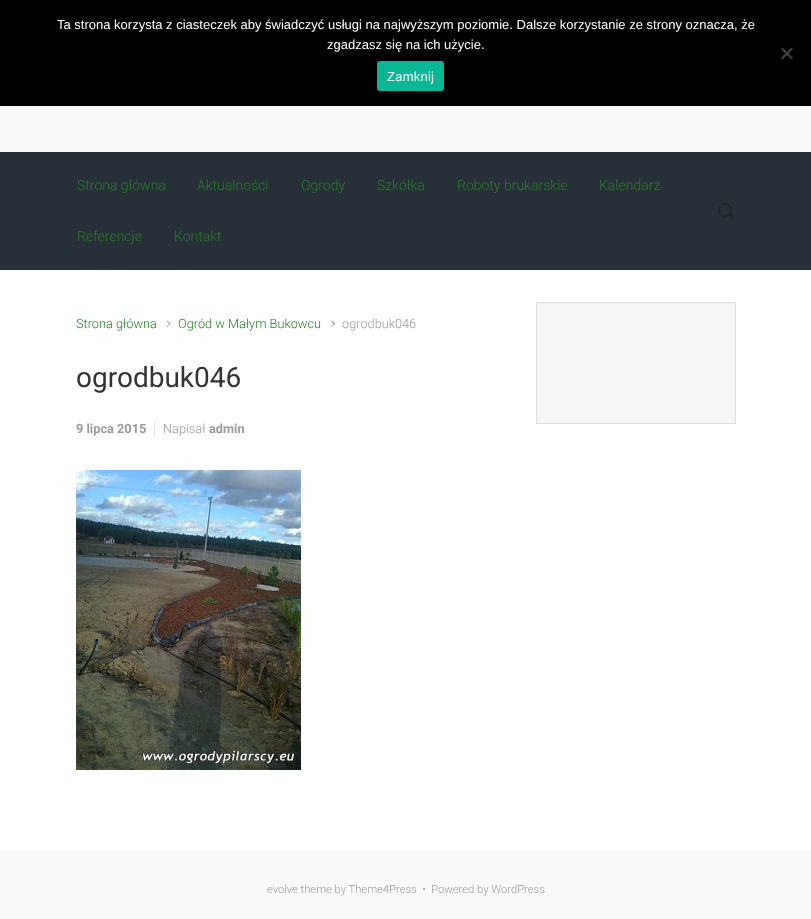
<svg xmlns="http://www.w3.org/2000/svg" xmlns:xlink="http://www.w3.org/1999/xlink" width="811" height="919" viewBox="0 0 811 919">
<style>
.cls-1{font:13px Liberation Sans;fill:#ffffff}
.cls-2{font:13px Liberation Sans;letter-spacing:0.25px;fill:#ffffff}
.cls-3{font:300 14px Roboto;fill:#28802b}
.cls-4{font:300 12.75px Roboto;fill:#28802b}
.cls-5{font:300 12.75px Roboto;fill:#999999}
.cls-6{font:28px Roboto;fill:#333333}
.cls-7{font:bold 12.75px Roboto;fill:#999999}
.cls-8{font:300 11.2px Roboto;fill:#999999}
</style>
<rect width="100%" height="100%" fill="#f9f9f9"/>
<rect fill="#000000" x="0" y="0" width="811" height="106"/>
<path fill="#404040" d="M791.5 47.5L793 49L782.5 59.5L781 58Z"/>
<path fill="#404040" d="M781 49L782.5 47.5L793 58L791.5 59.5Z"/>
<rect fill="#0bb697" x="377" y="61" width="67" height="30" rx="3"/>
<rect fill="#273039" x="0" y="152" width="811" height="118"/>
<image xlink:href="image0.png" x="718" y="203" width="16" height="16"/>
<rect fill="#ffffff" x="0" y="270" width="811" height="580"/>
<path fill="#999999" d="M166.5 321L167 320.5L170.5 323.5L170 324.5Z"/>
<path fill="#999999" d="M166.5 326.5L170 323L170.5 323.5L167 327Z"/>
<path fill="#999999" d="M331 321L331.5 320.5L335 323.5L334 324.5Z"/>
<path fill="#999999" d="M331 326.5L334 323L335 323.5L331.5 327Z"/>
<rect fill="#e6e6e6" x="154" y="421" width="1" height="15"/>
<image xlink:href="image1.png" x="76" y="470" width="225" height="300"/>
<rect fill="#f6f6f6" stroke="#e0dddd" x="536.5" y="302.5" width="199" height="121"/>
<text class="cls-1" x="57" y="29">Ta strona korzysta z ciasteczek aby świadczyć usługi na najwyższym poziomie. Dalsze korzystanie ze strony oznacza, że</text>
<text class="cls-1" x="327" y="49">zgadzasz się na ich użycie.</text>
<text class="cls-2" x="387" y="81">Zamknij</text>
<text class="cls-3" x="77" y="190">Strona główna</text>
<text class="cls-3" x="197" y="190">Aktualności</text>
<text class="cls-3" x="301" y="190">Ogrody</text>
<text class="cls-3" x="377" y="190">Szkółka</text>
<text class="cls-3" x="457" y="190">Roboty brukarskie</text>
<text class="cls-3" x="599" y="190">Kalendarz</text>
<text class="cls-3" x="77" y="241">Referencje</text>
<text class="cls-3" x="174" y="241">Kontakt</text>
<text class="cls-4" x="76" y="328">Strona główna</text>
<text class="cls-4" x="178" y="328">Ogród w Małym Bukowcu</text>
<text class="cls-5" x="342" y="328">ogrodbuk046</text>
<text class="cls-6" x="76" y="387">ogrodbuk046</text>
<text class="cls-7" x="76" y="433">9 lipca 2015</text>
<text class="cls-5" x="163" y="433">Napisał</text>
<text class="cls-7" x="209" y="433">admin</text>
<text class="cls-8" xml:space="preserve" x="267" y="893">evolve theme by Theme4Press  •  Powered by WordPress</text>
</svg>
